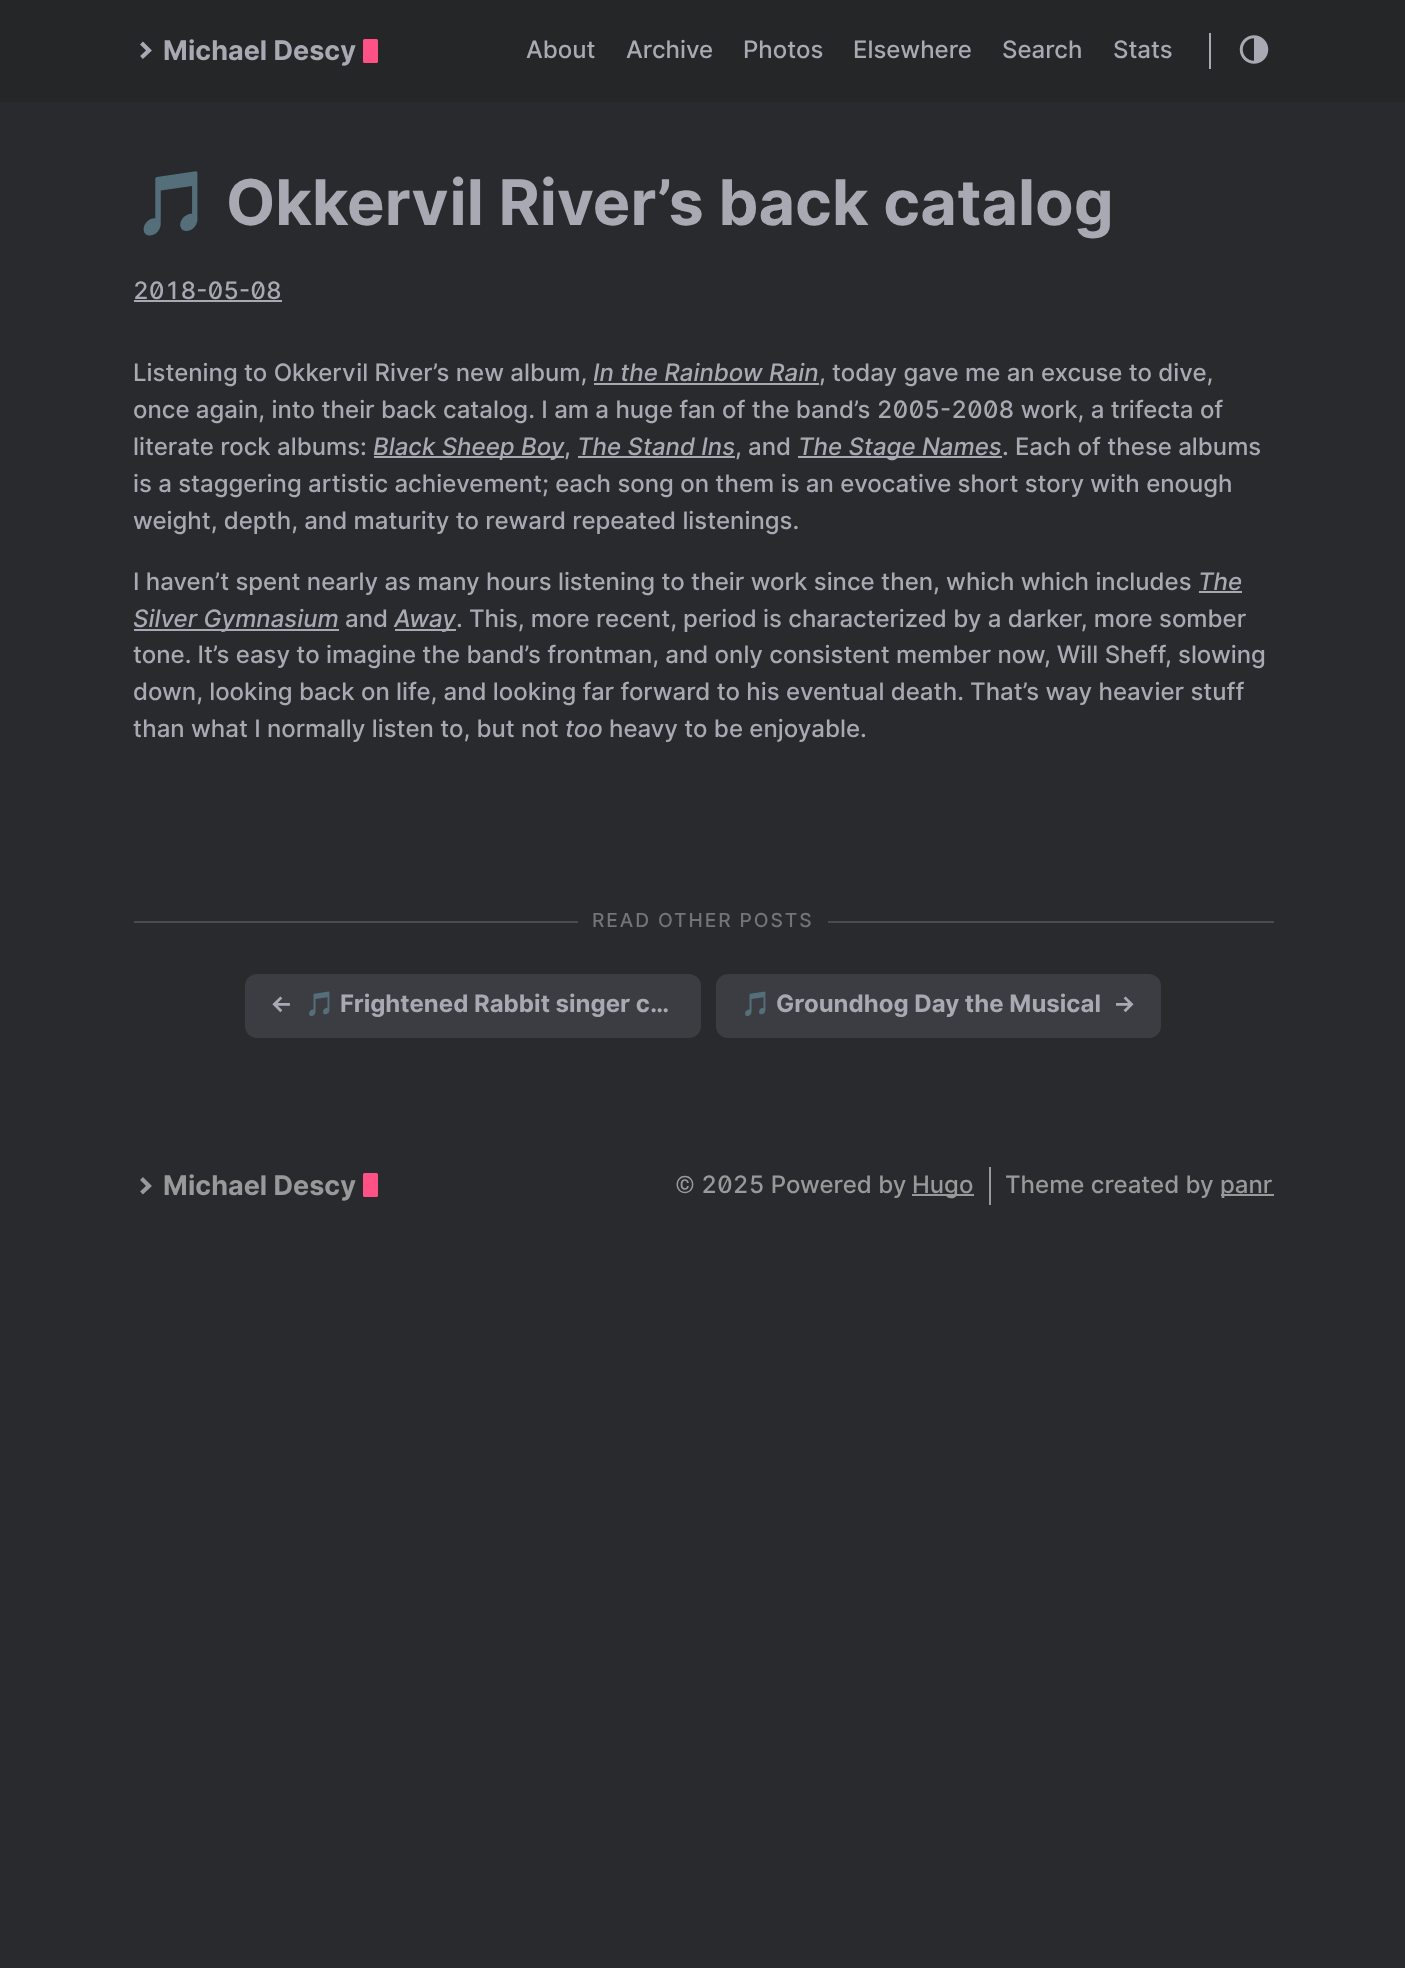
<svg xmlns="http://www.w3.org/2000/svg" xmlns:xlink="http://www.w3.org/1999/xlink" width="1405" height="1968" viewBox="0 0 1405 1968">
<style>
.cls-1{font:bold 27px Inter;fill:#a9a9b3}
.cls-2{font:500 24px Inter;fill:#a9a9b3}
.cls-3{font:bold 63px Noto Color Emoji;fill:#a9a9b3}
.cls-4{font:bold 63px Inter;fill:#a9a9b3}
.cls-5{font:500 24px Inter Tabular;fill:#a9a9b3}
.cls-6{font:italic 500 24px Inter;fill:#a9a9b3}
.cls-7{font:500 19.25px Inter;letter-spacing:1.9px;fill:#73747b}
.cls-8{font:bold 24px Inter;fill:#a9a9b3}
.cls-9{font:bold 24px Noto Color Emoji;fill:#a9a9b3}
.cls-10{font:bold 27px Inter;fill:#999999}
.cls-11{font:500 24px Inter Tabular;fill:#999999}
.cls-12{font:500 24px Inter;fill:#999999}
</style>
<defs>
<clipPath id="clip1"><rect x="305" y="987" width="370" height="38"/></clipPath>
<clipPath id="clip2"><rect x="741" y="987" width="360" height="38"/></clipPath>
</defs>
<rect width="100%" height="100%" fill="#292a2d"/>
<rect fill="#252627" x="0" y="0" width="1405" height="102"/>
<path fill="none" stroke="#a9a9b3" stroke-width="4.1" d="M141.5 43L149 50.5L141.5 57.5"/>
<rect fill="#fe5186" x="363" y="39" width="15" height="24" rx="1.5"/>
<rect fill="#a9a9b3" x="1209" y="33" width="2" height="36"/>
<image xlink:href="image0.png" x="1239" y="35" width="30" height="29"/>
<rect fill="#a9a9b3" x="134" y="300" width="148" height="2"/>
<rect fill="#a9a9b3" x="594" y="383" width="225" height="2"/>
<rect fill="#a9a9b3" x="374" y="456" width="190" height="2"/>
<rect fill="#a9a9b3" x="578" y="456" width="157" height="2"/>
<rect fill="#a9a9b3" x="798" y="456" width="204" height="2"/>
<rect fill="#a9a9b3" x="1199" y="591" width="43" height="2"/>
<rect fill="#a9a9b3" x="134" y="629" width="205" height="2"/>
<rect fill="#a9a9b3" x="395" y="629" width="61" height="2"/>
<rect fill="#4a4b50" x="134" y="921" width="1140" height="2"/>
<rect fill="#292a2d" x="578" y="921" width="250" height="2"/>
<rect fill="#3b3d42" x="245" y="974" width="456" height="64" rx="12"/>
<rect fill="#3b3d42" x="716" y="974" width="445" height="64" rx="12"/>
<path fill="none" stroke="#999999" stroke-width="4.1" d="M141.5 1178.5L149 1186L141.5 1193"/>
<rect fill="#fe5186" x="363" y="1173" width="15" height="24" rx="1.5"/>
<rect fill="#999999" x="989" y="1167" width="2" height="38"/>
<rect fill="#999999" x="912" y="1194" width="62" height="2"/>
<rect fill="#999999" x="1221" y="1194" width="53" height="2"/>
<text class="cls-1" x="163" y="60">Michael Descy</text>
<text class="cls-2" x="526" y="58">About</text>
<text class="cls-2" x="626" y="58">Archive</text>
<text class="cls-2" x="743" y="58">Photos</text>
<text class="cls-2" x="853" y="58">Elsewhere</text>
<text class="cls-2" x="1002" y="58">Search</text>
<text class="cls-2" x="1113" y="58">Stats</text>
<text class="cls-3" x="133" y="225">🎵</text>
<text class="cls-4" x="226" y="225">Okkervil River’s back catalog</text>
<text class="cls-5" x="133" y="299">2018-05-08</text>
<text class="cls-2" x="133" y="381">Listening to Okkervil River’s new album,</text>
<text class="cls-6" x="593" y="381">In the Rainbow Rain</text>
<text class="cls-2" x="819" y="381">, today gave me an excuse to dive,</text>
<text class="cls-5" x="133" y="418">once again, into their back catalog. I am a huge fan of the band’s 2005-2008 work, a trifecta of</text>
<text class="cls-2" x="133" y="455">literate rock albums:</text>
<text class="cls-6" x="373" y="455">Black Sheep Boy</text>
<text class="cls-2" x="564" y="455">,</text>
<text class="cls-6" x="577" y="455">The Stand Ins</text>
<text class="cls-2" x="735" y="455">, and</text>
<text class="cls-6" x="798" y="455">The Stage Names</text>
<text class="cls-2" x="1002" y="455">. Each of these albums</text>
<text class="cls-2"><tspan x="133" y="492">is a staggering artistic achievement; each song on them is an evocative short story with enough</tspan><tspan x="133" y="529">weight, depth, and maturity to reward repeated listenings.</tspan></text>
<text class="cls-2" x="133" y="590">I haven’t spent nearly as many hours listening to their work since then, which which includes</text>
<text class="cls-6" x="1198" y="590">The</text>
<text class="cls-6" x="133" y="627">Silver Gymnasium</text>
<text class="cls-2" x="345" y="627">and</text>
<text class="cls-6" x="394" y="627">Away</text>
<text class="cls-2" x="456" y="627">. This, more recent, period is characterized by a darker, more somber</text>
<text class="cls-2"><tspan x="133" y="663">tone. It’s easy to imagine the band’s frontman, and only consistent member now, Will Sheff, slowing</tspan><tspan x="133" y="700">down, looking back on life, and looking far forward to his eventual death. That’s way heavier stuff</tspan><tspan x="133" y="737">than what I normally listen to, but not</tspan></text>
<text class="cls-6" x="565" y="737">too</text>
<text class="cls-2" x="609" y="737">heavy to be enjoyable.</text>
<text class="cls-7" x="592" y="927">READ OTHER POSTS</text>
<text class="cls-8" x="270" y="1012">←</text>
<g clip-path="url(#clip1)">
<text class="cls-9" x="305" y="1012">🎵</text>
</g>
<text class="cls-8" x="340" y="1012">Frightened Rabbit singer c…</text>
<g clip-path="url(#clip2)">
<text class="cls-9" x="741" y="1012">🎵</text>
</g>
<text class="cls-8" x="776" y="1012">Groundhog Day the Musical</text>
<text class="cls-8" x="1113" y="1012">→</text>
<text class="cls-10" x="163" y="1195">Michael Descy</text>
<text class="cls-11" x="675" y="1193">© 2025 Powered by</text>
<text class="cls-12" x="912" y="1193">Hugo</text>
<text class="cls-12" x="1005" y="1193">Theme created by</text>
<text class="cls-12" x="1220" y="1193">panr</text>
</svg>
